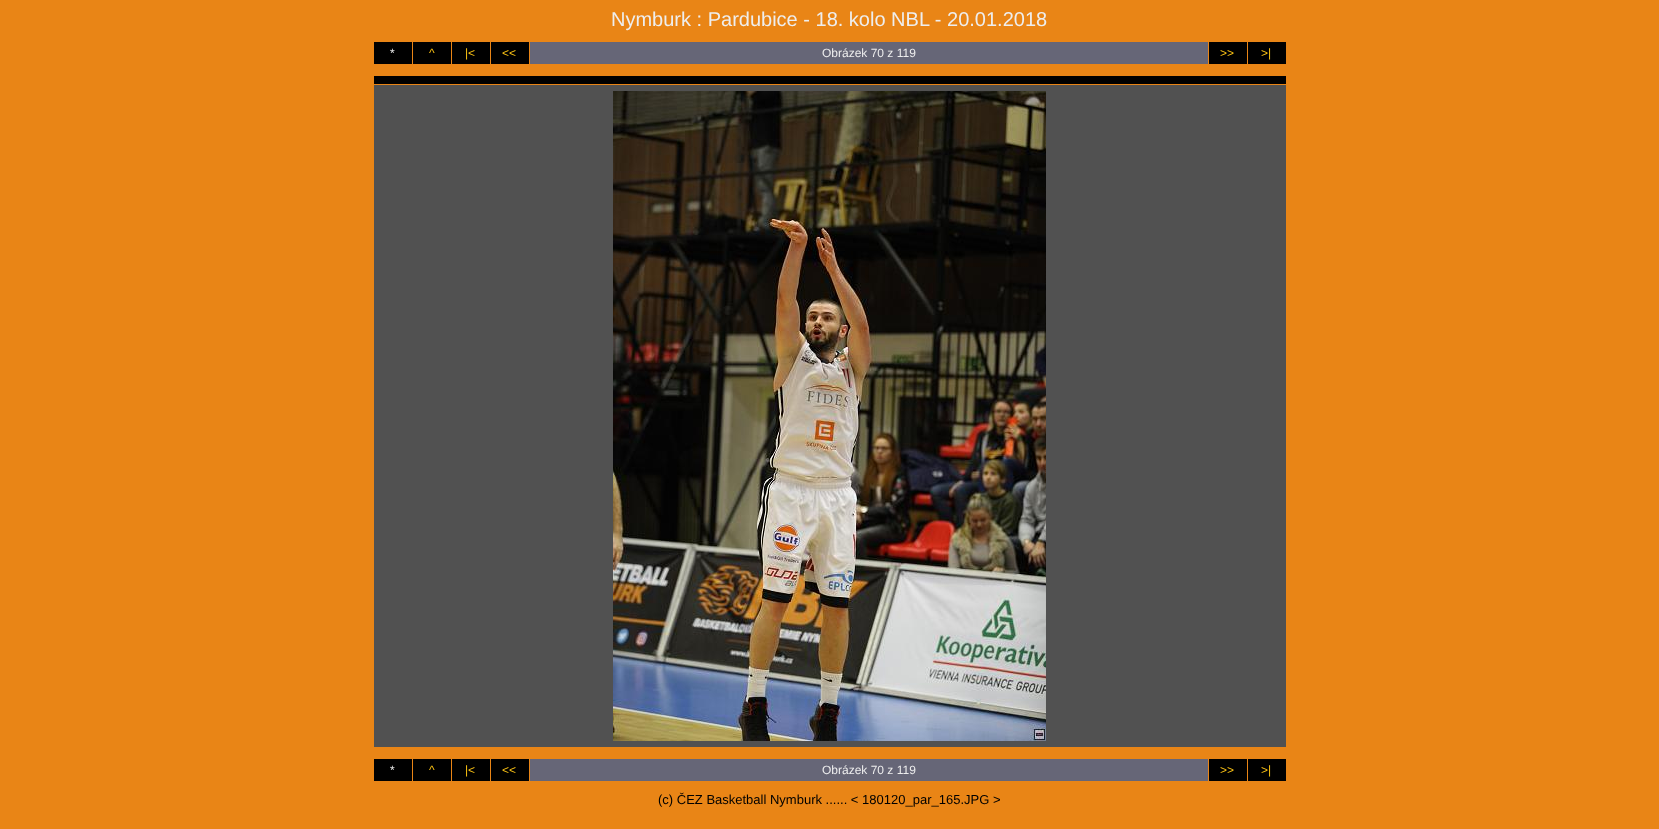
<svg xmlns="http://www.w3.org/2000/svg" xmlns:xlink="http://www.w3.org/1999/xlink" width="1659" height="829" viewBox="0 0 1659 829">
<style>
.cls-1{font:20px Liberation Sans;fill:#eeeeee}
.cls-2{font:12px Liberation Sans;fill:#eeeeee}
.cls-3{font:12px Liberation Sans;fill:#ffc513}
.cls-4{font:13px Liberation Sans;fill:#000000}
</style>
<rect width="100%" height="100%" fill="#e98516"/>
<rect fill="#000000" x="374" y="42" width="38" height="22"/>
<rect fill="#000000" x="413" y="42" width="38" height="22"/>
<rect fill="#000000" x="452" y="42" width="38" height="22"/>
<rect fill="#000000" x="491" y="42" width="38" height="22"/>
<rect fill="#666677" x="530" y="42" width="678" height="22"/>
<rect fill="#000000" x="1209" y="42" width="38" height="22"/>
<rect fill="#000000" x="1248" y="42" width="38" height="22"/>
<rect fill="#000000" x="374" y="76" width="912" height="8"/>
<rect fill="#515151" x="374" y="85" width="912" height="662"/>
<image xlink:href="image0.png" x="613" y="91" width="433" height="650"/>
<rect fill="#000000" x="374" y="759" width="38" height="22"/>
<rect fill="#000000" x="413" y="759" width="38" height="22"/>
<rect fill="#000000" x="452" y="759" width="38" height="22"/>
<rect fill="#000000" x="491" y="759" width="38" height="22"/>
<rect fill="#666677" x="530" y="759" width="678" height="22"/>
<rect fill="#000000" x="1209" y="759" width="38" height="22"/>
<rect fill="#000000" x="1248" y="759" width="38" height="22"/>
<text class="cls-1" x="611" y="26">Nymburk : Pardubice - 18. kolo NBL - 20.01.2018</text>
<text class="cls-2" x="390" y="57">*</text>
<text class="cls-3" x="429" y="57">^</text>
<text class="cls-3" x="465" y="57">|&lt;</text>
<text class="cls-3" x="502" y="57">&lt;&lt;</text>
<text class="cls-2" x="822" y="57">Obrázek 70 z 119</text>
<text class="cls-3" x="1220" y="57">&gt;&gt;</text>
<text class="cls-3" x="1261" y="57">&gt;|</text>
<text class="cls-2" x="390" y="774">*</text>
<text class="cls-3" x="429" y="774">^</text>
<text class="cls-3" x="465" y="774">|&lt;</text>
<text class="cls-3" x="502" y="774">&lt;&lt;</text>
<text class="cls-2" x="822" y="774">Obrázek 70 z 119</text>
<text class="cls-3" x="1220" y="774">&gt;&gt;</text>
<text class="cls-3" x="1261" y="774">&gt;|</text>
<text class="cls-4" x="658" y="804">(c) ČEZ Basketball Nymburk ...... &lt; 180120_par_165.JPG &gt;</text>
</svg>
